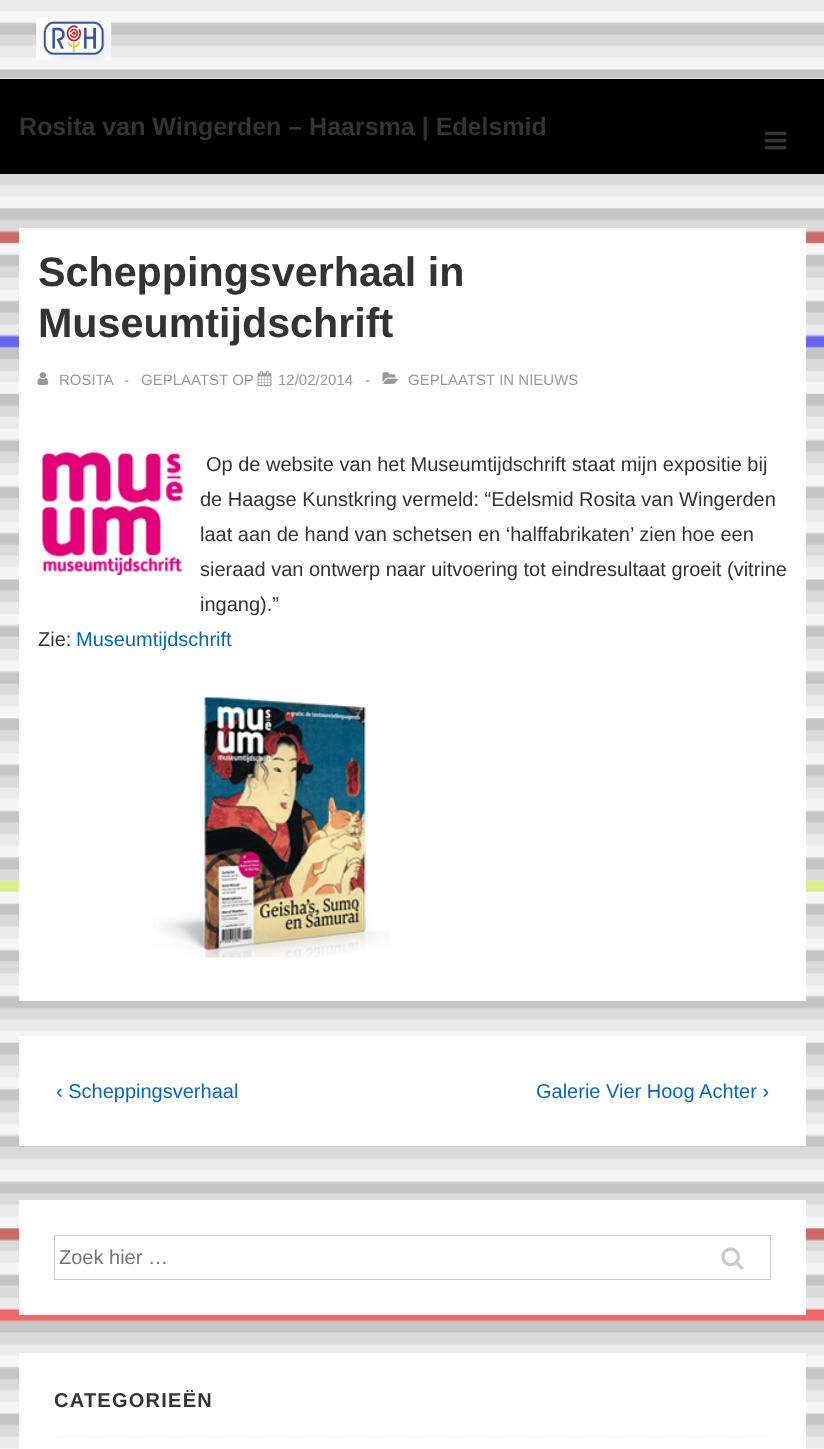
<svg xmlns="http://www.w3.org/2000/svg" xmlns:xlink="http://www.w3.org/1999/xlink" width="824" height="1449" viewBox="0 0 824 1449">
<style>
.cls-1{font:bold 25px Liberation Sans;fill:#333333}
.cls-2{font:bold 41.25px Liberation Sans;fill:#333333}
.cls-3{font:15px Liberation Sans;fill:#999999}
.cls-4{font:20px Liberation Sans;fill:#333333}
.cls-5{font:20px Liberation Sans;fill:#0066cc}
.cls-6{font:20px Liberation Sans;fill:#757575}
.cls-7{font:bold 20px Liberation Sans;letter-spacing:1.25px;fill:#333333}
</style>
<rect width="100%" height="100%" fill="#eaeaea"/>
<image xlink:href="image0.png" x="0" y="11" width="824" height="1438"/>
<rect fill="#eaeaea" x="0" y="78" width="824" height="1"/>
<image xlink:href="image1.png" x="36" y="17" width="76" height="43"/>
<rect fill="#000000" x="0" y="79" width="824" height="95"/>
<image xlink:href="image2.png" x="765" y="131" width="22" height="19"/>
<rect fill="#ffffff" x="19" y="228" width="787" height="773"/>
<image xlink:href="image3.png" x="37" y="372" width="12" height="13"/>
<image xlink:href="image4.png" x="257" y="371" width="15" height="16"/>
<image xlink:href="image5.png" x="382" y="372" width="17" height="12"/>
<image xlink:href="image6.png" x="42" y="452" width="141" height="123"/>
<image xlink:href="image7.png" x="153" y="697" width="238" height="261"/>
<rect fill="#ffffff" x="19" y="1036" width="787" height="110"/>
<rect fill="#ffffff" x="19" y="1200" width="787" height="115"/>
<rect fill="none" stroke="#cccccc" x="54.5" y="1235.5" width="716" height="44"/>
<image xlink:href="image8.png" x="721" y="1247" width="23" height="23"/>
<rect fill="#ffffff" x="19" y="1353" width="787" height="96"/>
<path fill="none" stroke="#eeeeee" stroke-width="1.2" stroke-dasharray="1.25 1.25" d="M54 1437H771"/>
<text class="cls-1" x="19" y="135">Rosita van Wingerden – Haarsma | Edelsmid</text>
<text class="cls-2"><tspan x="38" y="286">Scheppingsverhaal in</tspan><tspan x="38" y="337">Museumtijdschrift</tspan></text>
<text class="cls-3" x="59" y="385">ROSITA</text>
<text class="cls-3" x="124" y="385">-</text>
<text class="cls-3" x="141" y="385">GEPLAATST OP</text>
<text class="cls-3" x="278" y="385">12/02/2014</text>
<text class="cls-3" x="365" y="385">-</text>
<text class="cls-3" x="408" y="385">GEPLAATST IN NIEUWS</text>
<text class="cls-4" x="206" y="471">Op de website van het Museumtijdschrift staat mijn expositie bij</text>
<text class="cls-4"><tspan x="200" y="506">de Haagse Kunstkring vermeld: “Edelsmid Rosita van Wingerden</tspan><tspan x="200" y="541">laat aan de hand van schetsen en ‘halffabrikaten’ zien hoe een</tspan><tspan x="200" y="576">sieraad van ontwerp naar uitvoering tot eindresultaat groeit (vitrine</tspan><tspan x="200" y="611">ingang).”</tspan></text>
<text class="cls-4" x="38" y="646">Zie:</text>
<text class="cls-5" x="76" y="646">Museumtijdschrift</text>
<text class="cls-5" x="56" y="1098">‹ Scheppingsverhaal</text>
<text class="cls-5" x="536" y="1098">Galerie Vier Hoog Achter ›</text>
<text class="cls-6" x="59" y="1264">Zoek hier …</text>
<text class="cls-7" x="54" y="1407">CATEGORIEËN</text>
</svg>
